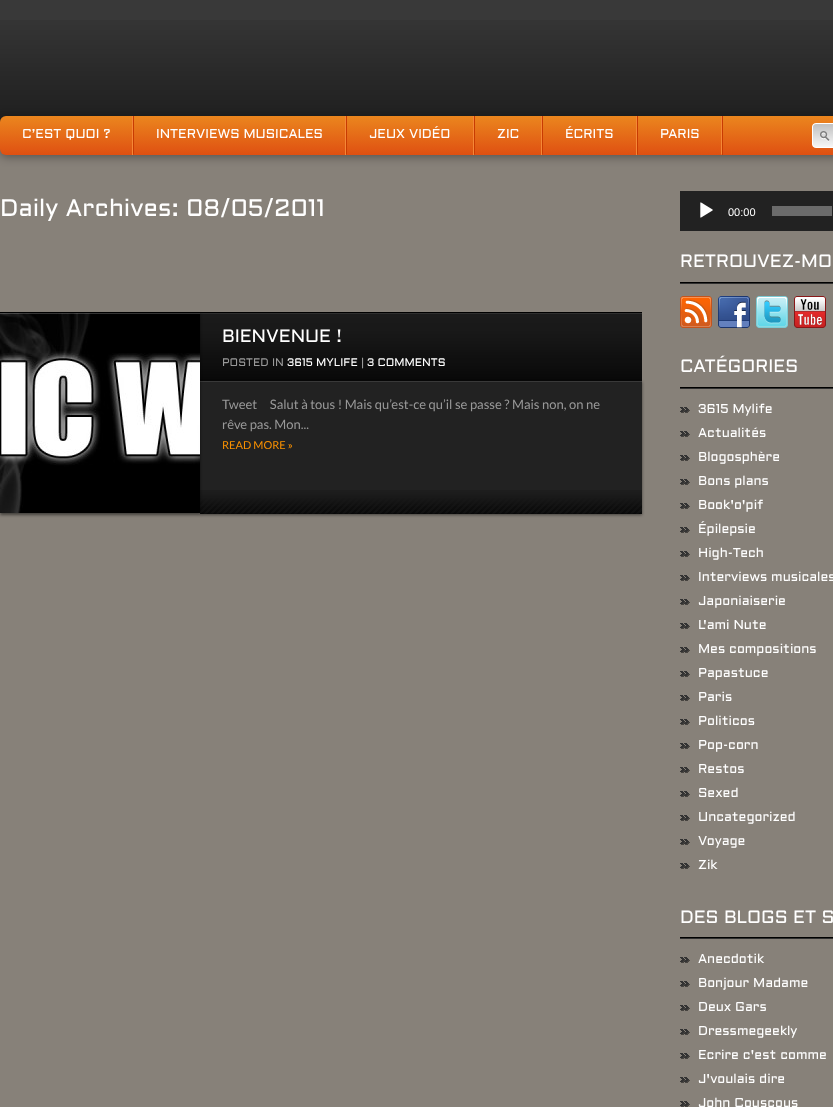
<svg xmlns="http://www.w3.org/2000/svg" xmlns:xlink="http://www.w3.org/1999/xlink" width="833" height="1107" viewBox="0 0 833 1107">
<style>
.cls-1{font:13px Aldrich;fill:#ffffff}
.cls-2{font:24px Aldrich;fill:#ffffff}
.cls-3{font:18px Aldrich;fill:#ffffff}
.cls-4{font:11px Aldrich;fill:#999999}
.cls-5{font:11px Aldrich;fill:#ffffff}
.cls-6{font:13px Lato;fill:#999999}
.cls-7{font:11px Lato;fill:#fa9100}
.cls-8{font:11px Liberation Sans;fill:#ffffff}
</style>
<defs>
<linearGradient id="g1" gradientUnits="userSpaceOnUse" x1="490" y1="116" x2="490" y2="155"><stop offset="0" stop-color="#eb861e"/><stop offset="1" stop-color="#df5012"/></linearGradient>
</defs>
<rect width="100%" height="100%" fill="#878179"/>
<rect fill="#393939" x="0" y="0" width="833" height="20"/>
<image xlink:href="image0.png" x="0" y="20" width="833" height="102"/>
<rect fill="#000000" fill-opacity="0.35" filter="blur(5px)" x="0" y="118" width="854" height="39" rx="6"/>
<rect fill="url(#g1)" x="0" y="116" width="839" height="39" rx="6"/>
<rect fill="#f58837" x="132" y="116" width="1" height="39"/>
<rect fill="#f58837" x="345" y="116" width="1" height="39"/>
<path fill="#c83b02" d="M133 155V116H134V154Z"/>
<rect fill="#f58837" x="473" y="116" width="1" height="39"/>
<path fill="#c83b02" d="M346 155V116H347V154Z"/>
<rect fill="#f58837" x="541" y="116" width="1" height="39"/>
<path fill="#c83b02" d="M474 155V116H475V154Z"/>
<rect fill="#f58837" x="636" y="116" width="1" height="39"/>
<path fill="#c83b02" d="M542 155V116H543V154Z"/>
<rect fill="#c83b02" x="722" y="116" width="1" height="39"/>
<path fill="#f58837" d="M722 116V155L721 154V116Z"/>
<path fill="#c83b02" d="M637 155V116H638V154Z"/>
<image xlink:href="image1.png" x="812" y="123" width="21" height="25"/>
<rect fill="#000000" x="0" y="312" width="200" height="1"/>
<rect fill="#000000" x="200" y="312" width="442" height="69"/>
<image xlink:href="image3.png" x="200" y="313" width="442" height="68"/>
<rect fill="#000000" fill-opacity="0.5" filter="blur(1.5px)" x="200" y="382" width="442" height="133"/>
<rect fill="#222222" x="200" y="382" width="442" height="108"/>
<image xlink:href="image4.png" x="200" y="490" width="442" height="24"/>
<rect fill="#393939" x="200" y="381" width="442" height="1"/>
<rect fill="#000000" fill-opacity="0.5" filter="blur(1.5px)" x="0" y="314" width="200" height="201"/>
<image xlink:href="image2.png" x="0" y="313" width="200" height="200"/>
<rect fill="#ffffff" fill-opacity="0.2" x="0" y="313" width="200" height="1"/>
<rect fill="#222222" x="680" y="191" width="153" height="40"/>
<image xlink:href="image5.png" x="700" y="202" width="13" height="16"/>
<rect fill="#6b6b6b" x="772" y="206" width="60" height="10"/>
<image xlink:href="image6.png" x="680" y="282" width="153" height="2"/>
<image xlink:href="image7.png" x="680" y="296" width="32" height="32"/>
<image xlink:href="image8.png" x="718" y="296" width="32" height="32"/>
<image xlink:href="image9.png" x="756" y="296" width="32" height="32"/>
<image xlink:href="image10.png" x="794" y="296" width="32" height="32"/>
<image xlink:href="image6.png" x="680" y="387" width="153" height="2"/>
<image xlink:href="image11.png" x="680" y="407" width="10" height="6"/>
<image xlink:href="image11.png" x="680" y="431" width="10" height="6"/>
<image xlink:href="image11.png" x="680" y="455" width="10" height="6"/>
<image xlink:href="image11.png" x="680" y="479" width="10" height="6"/>
<image xlink:href="image11.png" x="680" y="503" width="10" height="6"/>
<image xlink:href="image11.png" x="680" y="527" width="10" height="6"/>
<image xlink:href="image11.png" x="680" y="551" width="10" height="6"/>
<image xlink:href="image11.png" x="680" y="575" width="10" height="6"/>
<image xlink:href="image11.png" x="680" y="599" width="10" height="6"/>
<image xlink:href="image11.png" x="680" y="623" width="10" height="6"/>
<image xlink:href="image11.png" x="680" y="647" width="10" height="6"/>
<image xlink:href="image11.png" x="680" y="671" width="10" height="6"/>
<image xlink:href="image11.png" x="680" y="695" width="10" height="6"/>
<image xlink:href="image11.png" x="680" y="719" width="10" height="6"/>
<image xlink:href="image11.png" x="680" y="743" width="10" height="6"/>
<image xlink:href="image11.png" x="680" y="767" width="10" height="6"/>
<image xlink:href="image11.png" x="680" y="791" width="10" height="6"/>
<image xlink:href="image11.png" x="680" y="815" width="10" height="6"/>
<image xlink:href="image11.png" x="680" y="839" width="10" height="6"/>
<image xlink:href="image11.png" x="680" y="863" width="10" height="6"/>
<image xlink:href="image6.png" x="680" y="937" width="153" height="2"/>
<image xlink:href="image11.png" x="680" y="957" width="10" height="6"/>
<image xlink:href="image11.png" x="680" y="981" width="10" height="6"/>
<image xlink:href="image11.png" x="680" y="1005" width="10" height="6"/>
<image xlink:href="image11.png" x="680" y="1029" width="10" height="6"/>
<image xlink:href="image11.png" x="680" y="1053" width="10" height="6"/>
<image xlink:href="image11.png" x="680" y="1077" width="10" height="6"/>
<image xlink:href="image11.png" x="680" y="1101" width="10" height="6"/>
<text class="cls-1" x="22" y="138">C’EST QUOI ?</text>
<text class="cls-1" x="156" y="138">INTERVIEWS MUSICALES</text>
<text class="cls-1" x="369" y="138">JEUX VIDÉO</text>
<text class="cls-1" x="497" y="138">ZIC</text>
<text class="cls-1" x="565" y="138">ÉCRITS</text>
<text class="cls-1" x="660" y="138">PARIS</text>
<text class="cls-2" x="0" y="216">Daily Archives: 08/05/2011</text>
<text class="cls-3" x="222" y="342">BIENVENUE !</text>
<text class="cls-4" x="222" y="366">POSTED IN</text>
<text class="cls-5" x="287" y="366">3615 MYLIFE</text>
<text class="cls-4" x="361" y="366">|</text>
<text class="cls-5" x="367" y="366">3 COMMENTS</text>
<text class="cls-6" xml:space="preserve"><tspan x="222" y="409">Tweet     Salut à tous ! Mais qu’est-ce qu’il se passe ? Mais non, on ne</tspan><tspan x="222" y="429">rêve pas. Mon...</tspan></text>
<text class="cls-7" x="222" y="449">READ MORE »</text>
<text class="cls-8" x="728" y="216">00:00</text>
<text class="cls-3" x="680" y="267">RETROUVEZ-MO</text>
<text class="cls-3" x="680" y="372">CATÉGORIES</text>
<text class="cls-1"><tspan x="698" y="413">3615 Mylife</tspan><tspan x="698" y="437">Actualités</tspan><tspan x="698" y="461">Blogosphère</tspan><tspan x="698" y="485">Bons plans</tspan><tspan x="698" y="509">Book'o'pif</tspan><tspan x="698" y="533">Épilepsie</tspan><tspan x="698" y="557">High-Tech</tspan><tspan x="698" y="581">Interviews musicales</tspan><tspan x="698" y="605">Japoniaiserie</tspan><tspan x="698" y="629">L'ami Nute</tspan><tspan x="698" y="653">Mes compositions</tspan><tspan x="698" y="677">Papastuce</tspan><tspan x="698" y="701">Paris</tspan><tspan x="698" y="725">Politicos</tspan><tspan x="698" y="749">Pop-corn</tspan><tspan x="698" y="773">Restos</tspan><tspan x="698" y="797">Sexed</tspan><tspan x="698" y="821">Uncategorized</tspan><tspan x="698" y="845">Voyage</tspan><tspan x="698" y="869">Zik</tspan></text>
<text class="cls-3" x="680" y="923">DES BLOGS ET S</text>
<text class="cls-1"><tspan x="698" y="963">Anecdotik</tspan><tspan x="698" y="987">Bonjour Madame</tspan><tspan x="698" y="1011">Deux Gars</tspan><tspan x="698" y="1035">Dressmegeekly</tspan><tspan x="698" y="1059">Ecrire c'est comme</tspan><tspan x="698" y="1083">J'voulais dire</tspan><tspan x="698" y="1107">John Couscous</tspan></text>
</svg>
